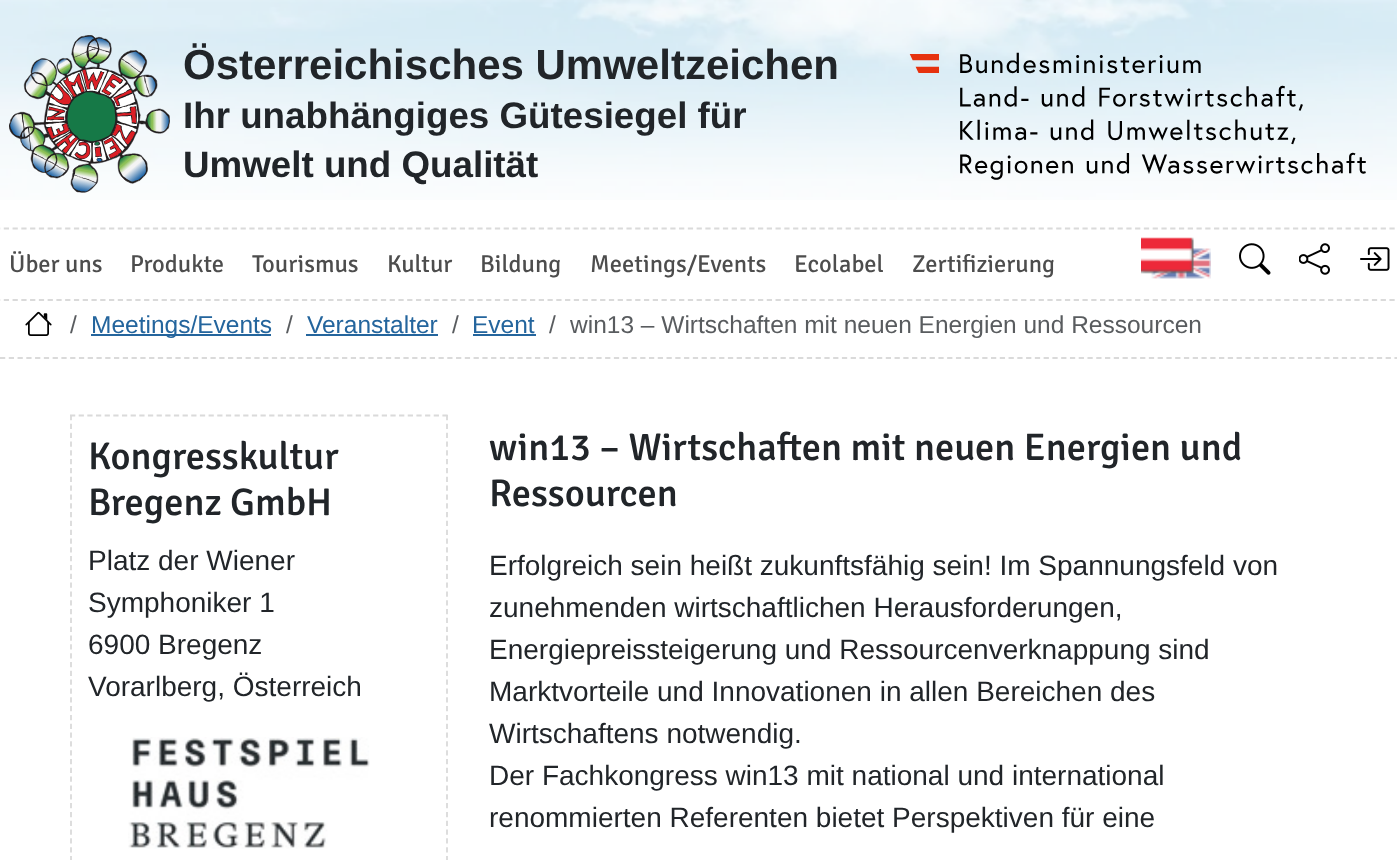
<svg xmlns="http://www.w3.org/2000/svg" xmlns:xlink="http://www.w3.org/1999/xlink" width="1397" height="860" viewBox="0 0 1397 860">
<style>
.cls-1{font:bold 42px Liberation Sans;fill:#212529}
.cls-2{font:bold 36.75px Liberation Sans;fill:#212529}
.cls-3{font:24.5px Signika;fill:#4d4d4d}
.cls-4{font:24.5px Liberation Sans;fill:#595c5f}
.cls-5{font:24.5px Liberation Sans;fill:#24659d}
.cls-6{font:500 38.5px Signika;fill:#212529}
.cls-7{font:28px Liberation Sans;fill:#212529}
</style>
<rect width="100%" height="100%" fill="#ffffff"/>
<image xlink:href="image0.png" x="0" y="0" width="1397" height="200"/>
<image xlink:href="image1.png" x="9" y="35" width="161" height="158"/>
<image xlink:href="image2.png" x="909" y="52" width="457" height="128"/>
<path fill="none" stroke="#dadada" stroke-width="1.8" stroke-dasharray="5.25 3.52" d="M-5 228.5H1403.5"/>
<path fill="none" stroke="#dadada" stroke-width="1.8" stroke-dasharray="5.25 3.52" d="M-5 300H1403.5"/>
<image xlink:href="image3.png" x="1141" y="237" width="70" height="42"/>
<image xlink:href="image4.png" x="1239" y="243" width="32" height="32"/>
<image xlink:href="image5.png" x="1299" y="243" width="31" height="32"/>
<image xlink:href="image6.png" x="1360" y="247" width="30" height="24"/>
<path fill="none" stroke="#dadada" stroke-width="1.8" stroke-dasharray="5.25 3.52" d="M0 358H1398"/>
<image xlink:href="image7.png" x="25" y="311" width="27" height="25"/>
<rect fill="#24659d" x="91" y="334" width="180" height="2"/>
<rect fill="#24659d" x="306" y="334" width="132" height="2"/>
<rect fill="#24659d" x="473" y="334" width="63" height="2"/>
<path fill="none" stroke="#dadada" stroke-width="1.8" stroke-dasharray="5.25 3.41" d="M70 415.5H448"/>
<path fill="none" stroke="#dadada" stroke-width="1.8" stroke-dasharray="5.25 3.57" d="M447 415V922"/>
<path fill="none" stroke="#dadada" stroke-width="1.8" stroke-dasharray="5.25 3.57" d="M71 415V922"/>
<image xlink:href="image8.png" x="128" y="737" width="242" height="112"/>
<text class="cls-1" x="183" y="79">Österreichisches Umweltzeichen</text>
<text class="cls-2"><tspan x="183" y="128">Ihr unabhängiges Gütesiegel für</tspan><tspan x="183" y="177">Umwelt und Qualität</tspan></text>
<text class="cls-3" x="9" y="272">Über uns</text>
<text class="cls-3" x="130" y="272">Produkte</text>
<text class="cls-3" x="252" y="272">Tourismus</text>
<text class="cls-3" x="387" y="272">Kultur</text>
<text class="cls-3" x="480" y="272">Bildung</text>
<text class="cls-3" x="590" y="272">Meetings/Events</text>
<text class="cls-3" x="794" y="272">Ecolabel</text>
<text class="cls-3" x="912" y="272">Zertifizierung</text>
<text class="cls-4" x="70" y="333">/</text>
<text class="cls-5" x="91" y="333">Meetings/Events</text>
<text class="cls-4" x="286" y="333">/</text>
<text class="cls-5" x="307" y="333">Veranstalter</text>
<text class="cls-4" x="452" y="333">/</text>
<text class="cls-5" x="472" y="333">Event</text>
<text class="cls-4" x="549" y="333">/</text>
<text class="cls-4" x="570" y="333">win13 – Wirtschaften mit neuen Energien und Ressourcen</text>
<text class="cls-6"><tspan x="88" y="469">Kongresskultur</tspan><tspan x="88" y="515">Bregenz GmbH</tspan></text>
<text class="cls-7"><tspan x="88" y="570">Platz der Wiener</tspan><tspan x="88" y="612">Symphoniker 1</tspan><tspan x="88" y="654">6900 Bregenz</tspan><tspan x="88" y="696">Vorarlberg, Österreich</tspan></text>
<text class="cls-6"><tspan x="489" y="460">win13 – Wirtschaften mit neuen Energien und</tspan><tspan x="489" y="506">Ressourcen</tspan></text>
<text class="cls-7"><tspan x="489" y="575">Erfolgreich sein heißt zukunftsfähig sein! Im Spannungsfeld von</tspan><tspan x="489" y="617">zunehmenden wirtschaftlichen Herausforderungen,</tspan><tspan x="489" y="659">Energiepreissteigerung und Ressourcenverknappung sind</tspan><tspan x="489" y="701">Marktvorteile und Innovationen in allen Bereichen des</tspan><tspan x="489" y="743">Wirtschaftens notwendig.</tspan><tspan x="489" y="785">Der Fachkongress win13 mit national und international</tspan><tspan x="489" y="827">renommierten Referenten bietet Perspektiven für eine</tspan></text>
</svg>
